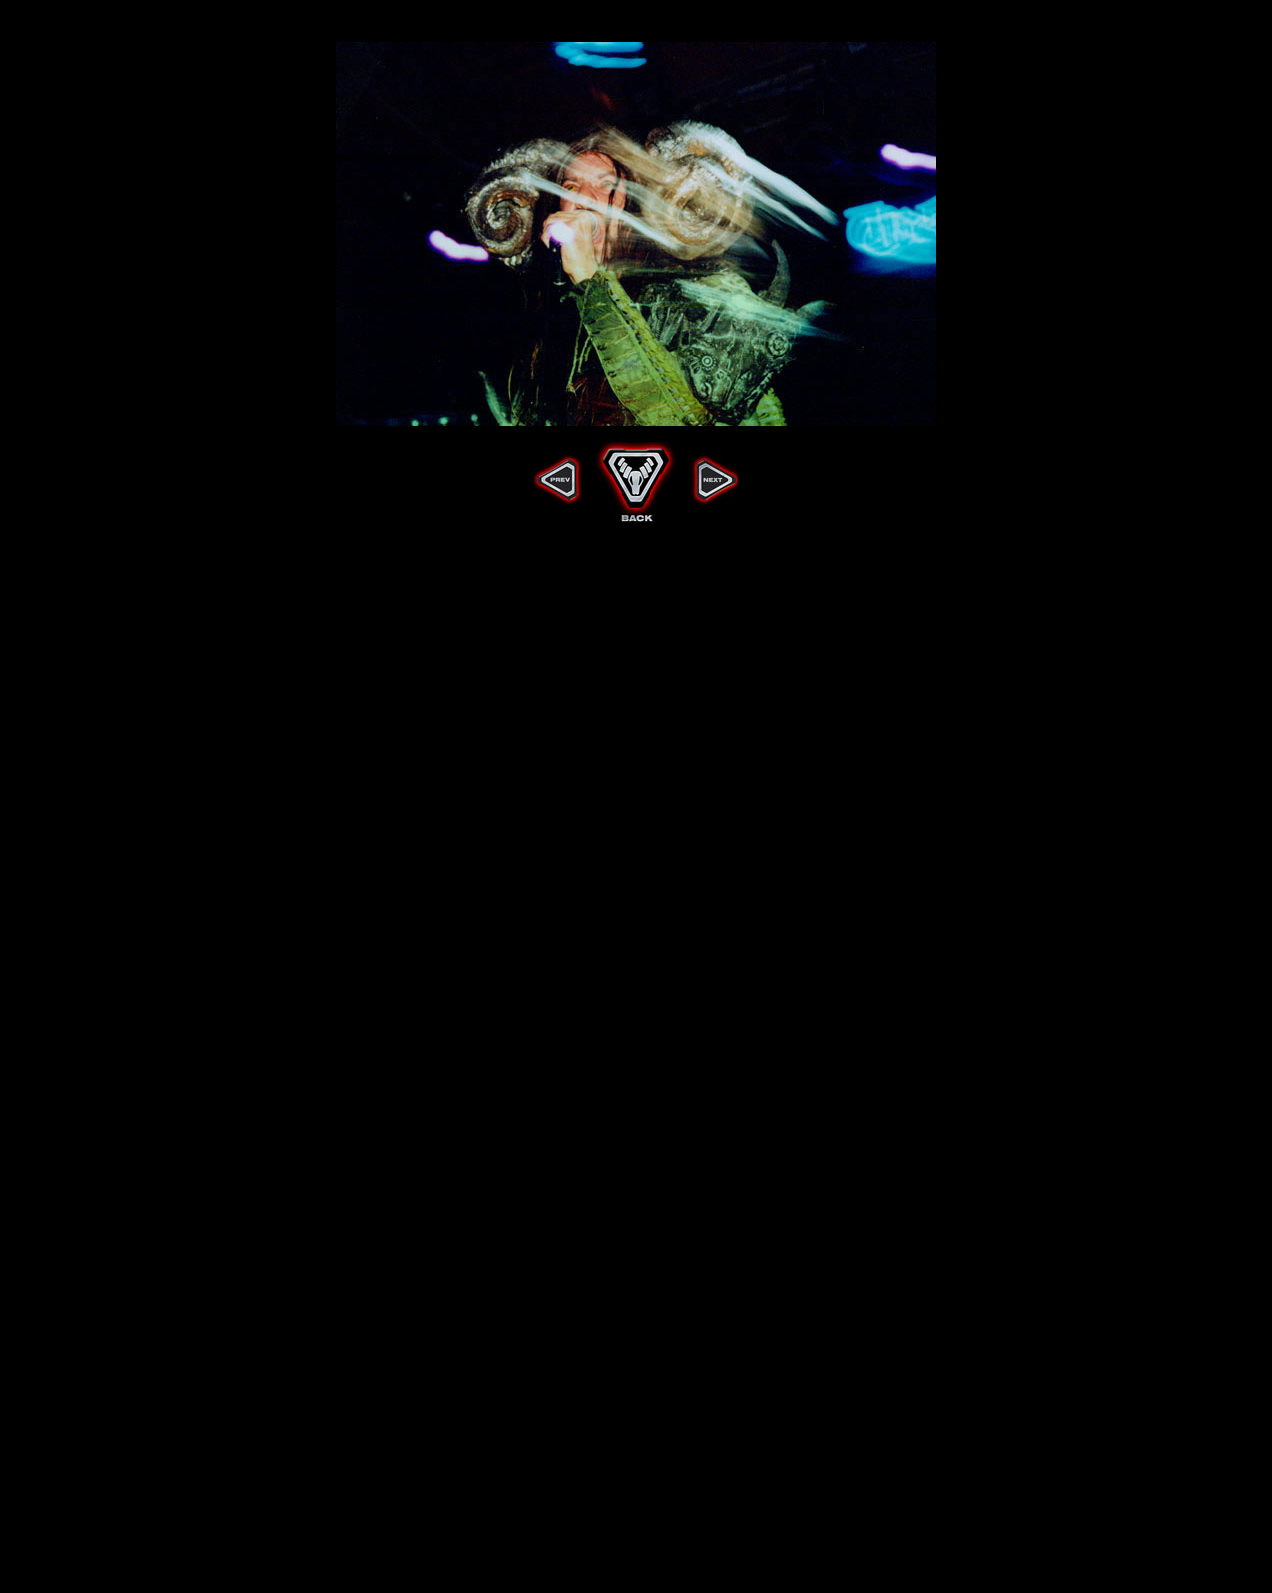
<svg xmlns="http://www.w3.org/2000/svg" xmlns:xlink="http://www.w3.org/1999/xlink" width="1272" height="1593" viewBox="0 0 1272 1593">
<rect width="100%" height="100%" fill="#000000"/>
<image xlink:href="image0.png" x="336" y="42" width="600" height="384"/>
<image xlink:href="image1.png" x="534" y="442" width="204" height="80"/>
</svg>
